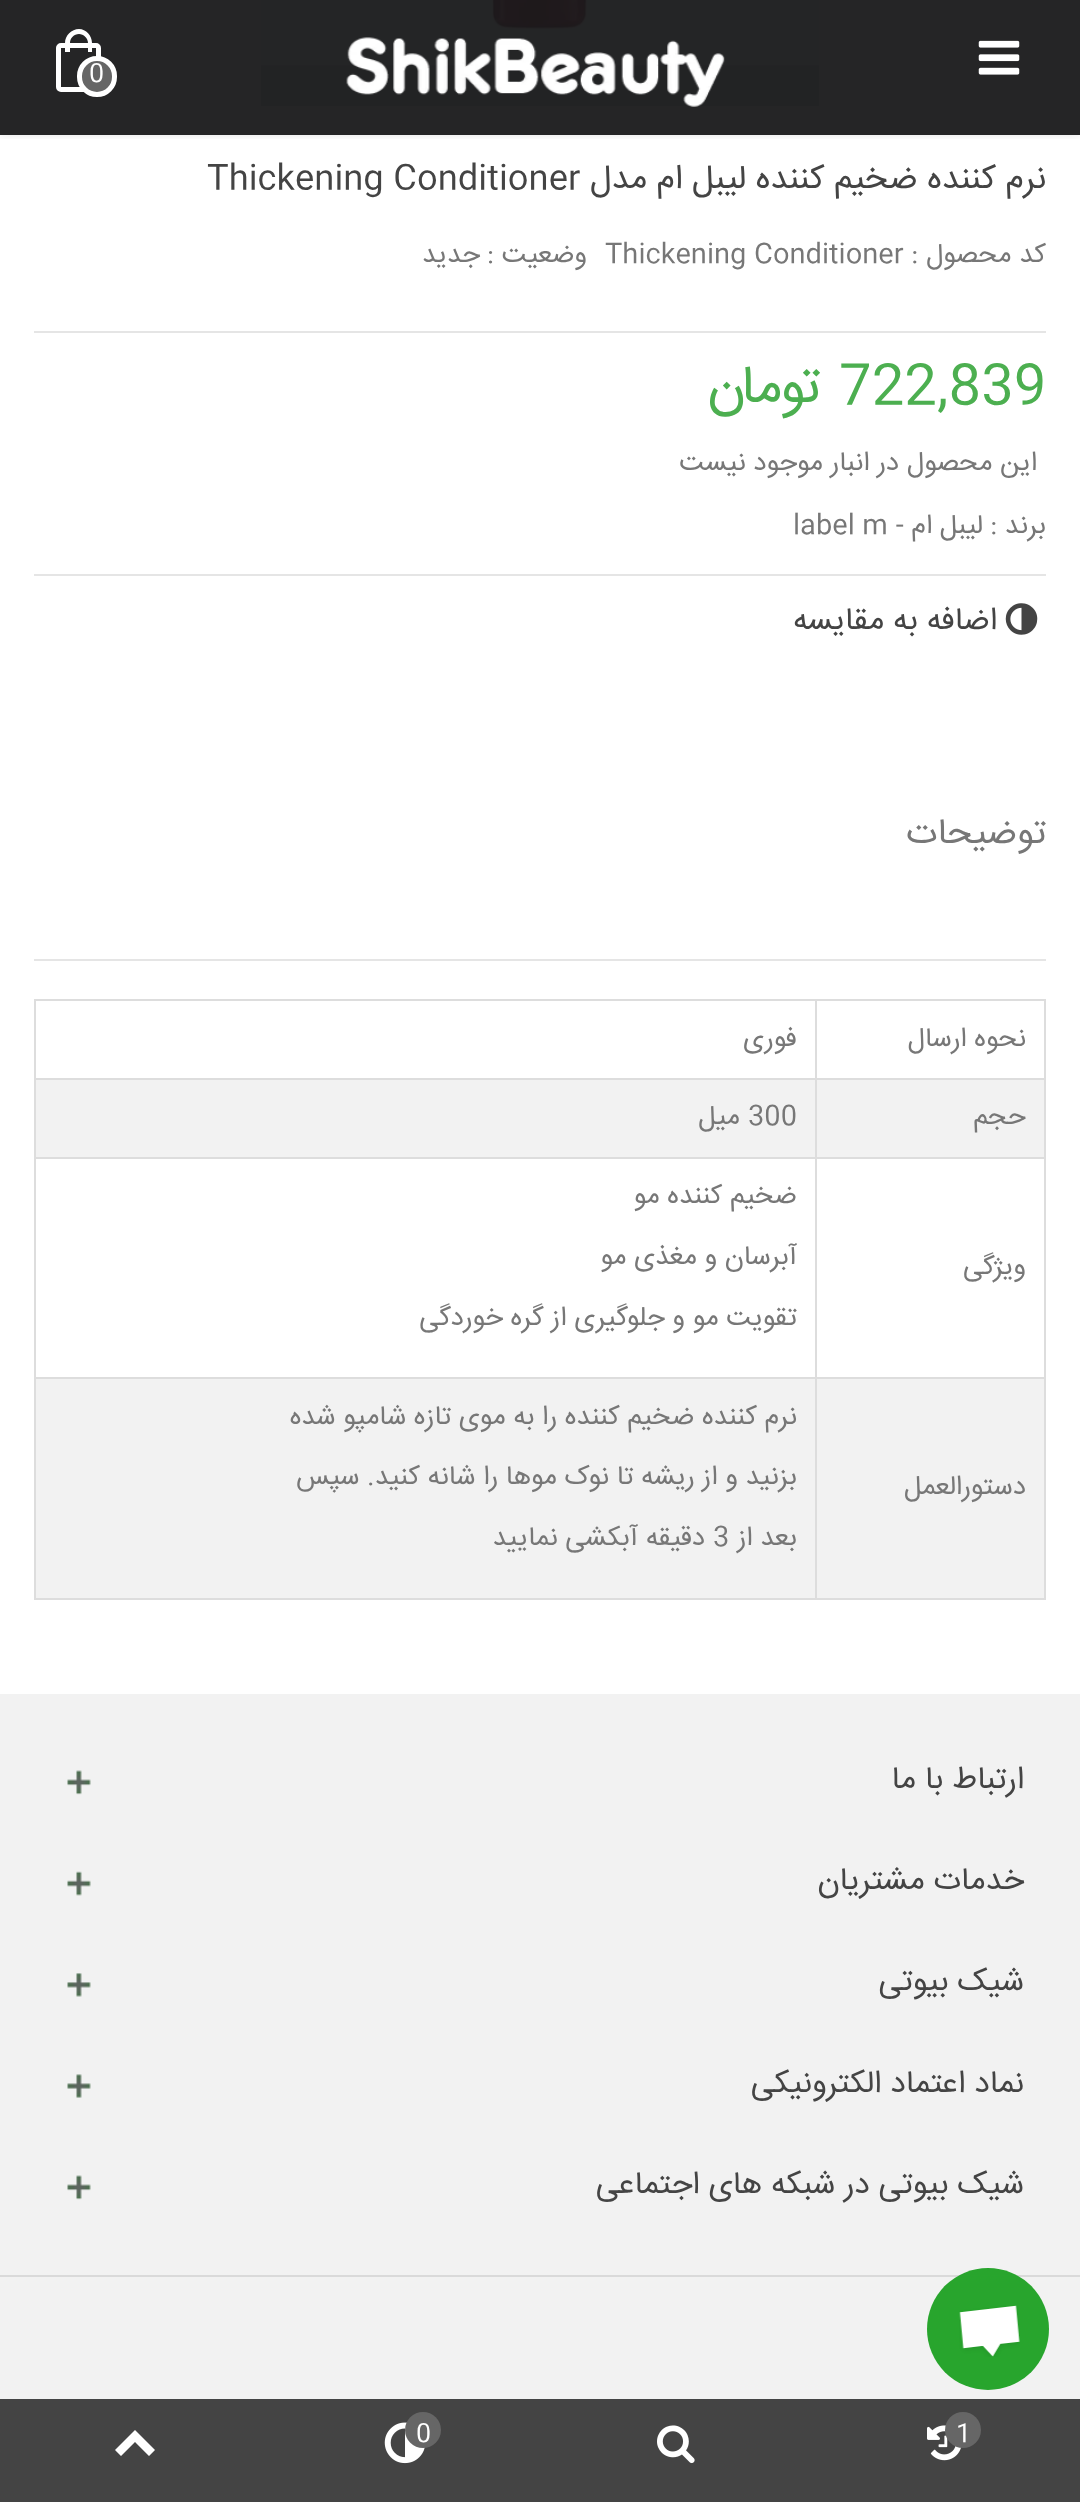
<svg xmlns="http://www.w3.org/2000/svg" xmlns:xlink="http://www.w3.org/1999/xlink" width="1080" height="2502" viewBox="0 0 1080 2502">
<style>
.cls-1{font:25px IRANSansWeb;fill:#ffffff}
.cls-2{font:33.75px IRANSansWeb;direction:rtl;fill:#444444}
.cls-3{font:33.75px IRANSansWeb;fill:#444444}
.cls-4{font:27px IRANSansWeb;direction:rtl;fill:#777777}
.cls-5{font:27px IRANSansWeb;fill:#777777}
.cls-6{font:54px IRANSansWeb;fill:#4caf50}
.cls-7{font:54px IRANSansWeb;direction:rtl;fill:#4caf50}
.cls-8{font:31.5px IRANSansWeb;direction:rtl;fill:#444444}
.cls-9{font:36px IRANSansWeb;direction:rtl;fill:#777777}
</style>
<defs>
<clipPath id="clip1"><rect x="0" y="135" width="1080" height="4"/></clipPath>
</defs>
<rect width="100%" height="100%" fill="#ffffff"/>
<rect fill="#252526" x="0" y="0" width="1080" height="135"/>
<rect fill="#222324" x="261" y="65" width="558" height="41"/>
<image xlink:href="image2.png" x="261" y="0" width="558" height="66"/>
<g clip-path="url(#clip1)">
<rect fill="#000000" fill-opacity="0.1" filter="blur(4.5px)" x="0" y="0" width="1080" height="135"/>
</g>
<image xlink:href="image0.png" x="978" y="40" width="42" height="35"/>
<image xlink:href="image1.png" x="346" y="37" width="379" height="70"/>
<rect fill="none" stroke="#ffffff" stroke-width="5" x="58.5" y="45.5" width="40" height="44" rx="2.5"/>
<path fill="#ffffff" fill-rule="evenodd" d="M79 29C86 29 92 35.5 92 43V52H65V43C65 35.5 71.5 29 79 29ZM79 34C83.5 34 88 38 88 43V52H70V43C70 38 74 34 79 34Z"/>
<rect fill="#666666" stroke="#ffffff" stroke-width="5" x="79.5" y="58.5" width="35" height="36" rx="17.5"/>
<rect fill="#e5e5e5" x="34" y="331" width="1012" height="2"/>
<rect fill="#e5e5e5" x="34" y="574" width="1012" height="2"/>
<image xlink:href="image3.png" x="1005" y="603" width="33" height="32"/>
<rect fill="#e5e5e5" x="34" y="959" width="1012" height="2"/>
<rect fill="#dddddd" x="34" y="999" width="783" height="2"/>
<rect fill="#dddddd" x="34" y="1078" width="783" height="2"/>
<rect fill="#f2f2f2" x="36" y="1080" width="1008" height="77"/>
<rect fill="#dddddd" x="34" y="1157" width="783" height="2"/>
<rect fill="#dddddd" x="34" y="1377" width="783" height="2"/>
<rect fill="#f2f2f2" x="36" y="1379" width="1008" height="219"/>
<rect fill="#dddddd" x="815" y="1377" width="2" height="223"/>
<rect fill="#dddddd" x="815" y="1377" width="231" height="2"/>
<rect fill="#dddddd" x="815" y="1157" width="2" height="222"/>
<rect fill="#dddddd" x="815" y="1157" width="231" height="2"/>
<rect fill="#dddddd" x="815" y="1078" width="2" height="81"/>
<rect fill="#dddddd" x="815" y="1078" width="231" height="2"/>
<rect fill="#dddddd" x="815" y="999" width="2" height="81"/>
<rect fill="#dddddd" x="815" y="999" width="231" height="2"/>
<rect fill="#dddddd" x="1044" y="1377" width="2" height="223"/>
<rect fill="#dddddd" x="1044" y="1157" width="2" height="222"/>
<rect fill="#dddddd" x="1044" y="1078" width="2" height="81"/>
<rect fill="#dddddd" x="1044" y="999" width="2" height="81"/>
<rect fill="#dddddd" x="34" y="1598" width="783" height="2"/>
<rect fill="#dddddd" x="34" y="1377" width="2" height="223"/>
<rect fill="#dddddd" x="34" y="1157" width="2" height="222"/>
<rect fill="#dddddd" x="34" y="1078" width="2" height="81"/>
<rect fill="#dddddd" x="34" y="999" width="2" height="81"/>
<rect fill="#dddddd" x="815" y="1598" width="231" height="2"/>
<rect fill="#f2f2f2" x="0" y="1694" width="1080" height="581"/>
<image xlink:href="image4.png" x="67" y="1770" width="24" height="25"/>
<image xlink:href="image5.png" x="67" y="1871" width="24" height="25"/>
<image xlink:href="image6.png" x="67" y="1973" width="24" height="24"/>
<image xlink:href="image7.png" x="67" y="2074" width="24" height="24"/>
<image xlink:href="image4.png" x="67" y="2175" width="24" height="25"/>
<rect fill="#f2f2f2" x="0" y="2277" width="1080" height="122"/>
<rect fill="#dadada" x="0" y="2275" width="1080" height="2"/>
<rect fill="#444444" x="0" y="2399" width="1080" height="103"/>
<image xlink:href="image8.png" x="927" y="2425" width="35" height="36"/>
<circle fill="#666666" cx="963" cy="2430" r="18"/>
<image xlink:href="image9.png" x="657" y="2425" width="38" height="39"/>
<image xlink:href="image10.png" x="384" y="2422" width="41" height="42"/>
<circle fill="#666666" cx="423" cy="2430" r="18"/>
<path fill="#ffffff" d="M115 2450L135 2430L155 2450L149 2456L135 2442L121 2456Z"/>
<circle fill="#28a52d" cx="988" cy="2329" r="61"/>
<image xlink:href="image11.png" x="959" y="2305" width="61" height="52"/>
<text class="cls-1" x="89" y="81">0</text>
<text class="cls-2" x="1046" y="188">نرم کننده ضخیم کننده لیبل ام مدل</text>
<text class="cls-3" x="207" y="188">Thickening Conditioner</text>
<text class="cls-4" x="1046" y="262">کد محصول :</text>
<text class="cls-5" x="605" y="262">Thickening Conditioner</text>
<text class="cls-4" x="587" y="262">وضعیت :</text>
<text class="cls-4" x="480" y="262">جدید</text>
<text class="cls-6" x="839" y="402">722,839</text>
<text class="cls-7" x="824" y="402">تومان</text>
<text class="cls-4" x="1037" y="470">این محصول در انبار موجود نیست</text>
<text class="cls-4" x="1046" y="533">برند :</text>
<text class="cls-4" x="983" y="533">لیبل ام -</text>
<text class="cls-5" x="793" y="533">label m</text>
<text class="cls-8" x="997" y="629">اضافه به مقایسه</text>
<text class="cls-9" x="1046" y="843">توضیحات</text>
<text class="cls-4" x="1026" y="1046">نحوه ارسال</text>
<text class="cls-4" x="797" y="1046">فوری</text>
<text class="cls-4" x="1026" y="1124">حجم</text>
<text class="cls-5" x="748" y="1124">300</text>
<text class="cls-4" x="740" y="1124">میل</text>
<text class="cls-4" x="1026" y="1274">ویژگی</text>
<text class="cls-4" x="797" y="1203">ضخیم کننده مو</text>
<text class="cls-4" x="797" y="1264">آبرسان و مغذی مو</text>
<text class="cls-4" x="797" y="1325">تقویت مو و جلوگیری از گره خوردگی</text>
<text class="cls-4" x="1026" y="1494">دستورالعمل</text>
<text class="cls-4" x="797" y="1424">نرم کننده ضخیم کننده را به موی تازه شامپو شده</text>
<text class="cls-4" x="797" y="1484">بزنید و از ریشه تا نوک موها را شانه کنید. سپس</text>
<text class="cls-4" x="797" y="1545">بعد از</text>
<text class="cls-5" x="713" y="1545">3</text>
<text class="cls-4" x="705" y="1545">دقیقه آبکشی نمایید</text>
<text class="cls-8" x="1024" y="1788">ارتباط با ما</text>
<text class="cls-8" x="1024" y="1889">خدمات مشتریان</text>
<text class="cls-8" x="1024" y="1990">شیک بیوتی</text>
<text class="cls-8" x="1024" y="2092">نماد اعتماد الکترونیکی</text>
<text class="cls-8" x="1024" y="2193">شیک بیوتی در شبکه های اجتماعی</text>
<text class="cls-1" x="956" y="2441">1</text>
<text class="cls-1" x="416" y="2441">0</text>
</svg>
